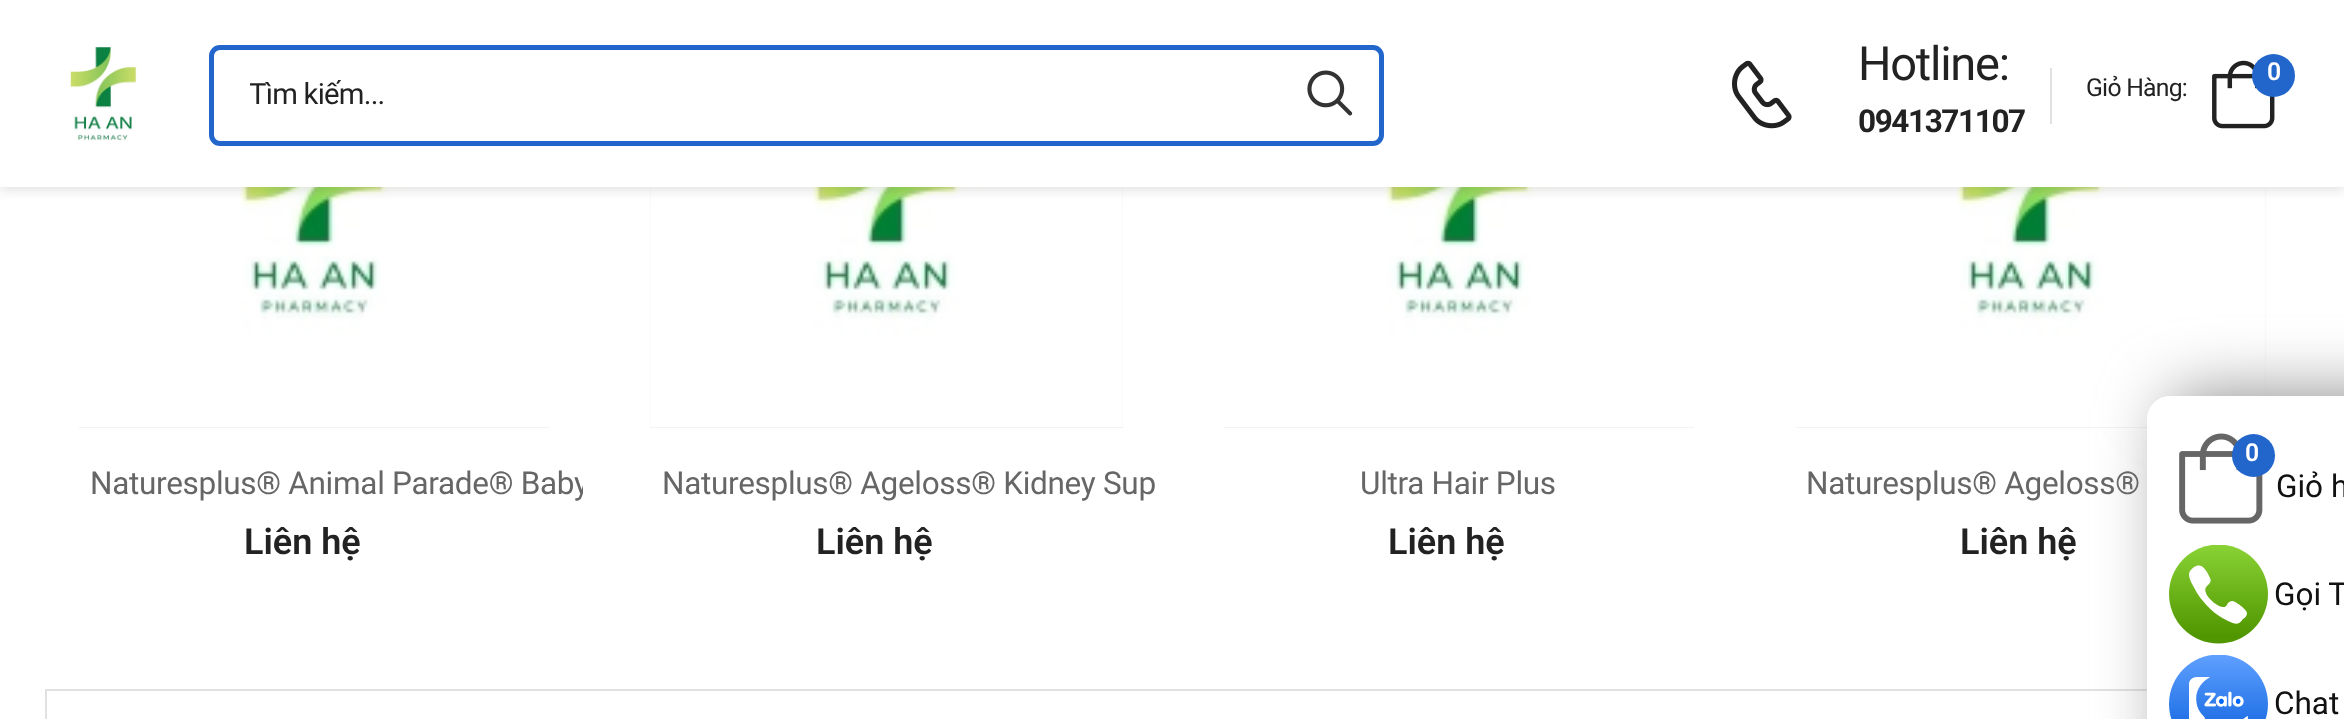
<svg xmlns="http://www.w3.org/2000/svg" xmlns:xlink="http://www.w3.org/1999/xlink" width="2344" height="719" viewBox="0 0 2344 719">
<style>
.cls-1{font:29.25px Roboto;letter-spacing:-0.75px;fill:#222222}
.cls-2{font:47px Roboto;letter-spacing:-1.25px;fill:#222222}
.cls-3{font:bold 31.5px Roboto;letter-spacing:-1.4px;fill:#222222}
.cls-4{font:600 24.75px Roboto;letter-spacing:-0.75px;fill:#ffffff}
.cls-5{font:24.75px Roboto;letter-spacing:-0.75px;fill:#222222}
.cls-6{font:31.5px Roboto;letter-spacing:-0.3px;fill:#666666}
.cls-7{font:600 36px Roboto;fill:#222222}
.cls-8{font:600 24.75px Roboto;fill:#ffffff}
.cls-9{font:31.5px Roboto;fill:#111111}
</style>
<defs>
<clipPath id="clip1"><rect x="2169" y="545" width="99" height="99"/></clipPath>
<linearGradient id="g1" gradientUnits="userSpaceOnUse" x1="2219" y1="544" x2="2219" y2="636"><stop offset="0" stop-color="#8ad336"/><stop offset="1" stop-color="#509600"/></linearGradient>
<clipPath id="clip2"><rect x="250" y="77" width="1017" height="33"/></clipPath>
<clipPath id="clip3"><rect x="45" y="0" width="538" height="655"/></clipPath>
</defs>
<rect width="100%" height="100%" fill="#ffffff"/>
<image xlink:href="image4.png" x="79" y="187" width="470" height="240"/>
<rect fill="#f2f3f5" x="650" y="187" width="473" height="241"/>
<image xlink:href="image5.png" x="650" y="187" width="473" height="240"/>
<image xlink:href="image6.png" x="1224" y="187" width="470" height="240"/>
<rect fill="#f2f3f5" x="1796" y="187" width="470" height="241"/>
<image xlink:href="image7.png" x="1796" y="187" width="470" height="240"/>
<rect fill="#000000" fill-opacity="0.1" filter="blur(5.5px)" x="0" y="5" width="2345" height="186"/>
<rect fill="#ffffff" x="0" y="0" width="2344" height="187"/>
<image xlink:href="image0.png" x="69" y="46" width="68" height="95"/>
<rect fill="none" stroke="#2266cc" stroke-width="5" x="211.5" y="47.5" width="1170" height="96" rx="8.5"/>
<image xlink:href="image1.png" x="1307" y="70" width="46" height="46"/>
<image xlink:href="image2.png" x="1731" y="60" width="61" height="69"/>
<rect fill="#e1e1e1" x="2050" y="68" width="2" height="56"/>
<image xlink:href="image3.png" x="2212" y="60" width="63" height="69"/>
<circle fill="#2266cc" cx="2273.5" cy="75.5" r="21.5"/>
<rect fill="#f2f3f5" x="79" y="427" width="470" height="1"/>
<rect fill="#f2f3f5" x="1224" y="427" width="470" height="1"/>
<rect fill="none" stroke="#e1e1e1" stroke-width="2" x="46" y="690" width="2253" height="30"/>
<rect fill="#888888" filter="blur(34px)" x="2169" y="396" width="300" height="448" rx="23"/>
<path fill="#ffffff" d="M2170 396H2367V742H2170C2157.5 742 2147 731.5 2147 719V419C2147 406.5 2157.5 396 2170 396Z"/>
<image xlink:href="image8.png" x="2179" y="433" width="84" height="91"/>
<circle fill="#2266cc" cx="2253.5" cy="455.5" r="21.5"/>
<g clip-path="url(#clip1)">
<circle fill="url(#g1)" cx="2218.5" cy="594" r="49.5"/>
</g>
<path fill="#ffffff" fill-rule="evenodd" d="M2201 566C2204 567 2208 573 2209 576C2216 587 2198 583 2209 598C2212 601 2215 604 2219 606C2229 610 2225 602 2232 601C2236 601 2247 610 2247 613C2247 616 2245 618 2243 619C2238 626 2235 624 2228 621C2215 615 2205 605 2197 593L2191 582C2188 574 2188 572 2194 567C2196 566 2198 565 2201 566Z"/>
<image xlink:href="image9.png" x="2169" y="655" width="99" height="64"/>
<g clip-path="url(#clip2)">
<text class="cls-1" x="249" y="104">Tìm kiếm...</text>
</g>
<text class="cls-2" x="1858" y="80">Hotline:</text>
<text class="cls-3" x="1858" y="132">0941371107</text>
<text class="cls-4" x="2267" y="80">0</text>
<text class="cls-5" x="2086" y="96">Giỏ Hàng:</text>
<g clip-path="url(#clip3)">
<text class="cls-6" x="90" y="494">Naturesplus® Animal Parade® Baby</text>
</g>
<text class="cls-7" x="244" y="554">Liên hệ</text>
<text class="cls-6" x="662" y="494">Naturesplus® Ageloss® Kidney Sup</text>
<text class="cls-7" x="816" y="554">Liên hệ</text>
<text class="cls-6" x="1360" y="494">Ultra Hair Plus</text>
<text class="cls-7" x="1388" y="554">Liên hệ</text>
<text class="cls-6" x="1806" y="494">Naturesplus® Ageloss®</text>
<text class="cls-7" x="1960" y="554">Liên hệ</text>
<text class="cls-8" x="2245" y="461">0</text>
<text class="cls-9" x="2276" y="497">Giỏ h</text>
<text class="cls-9" x="2274" y="605">Gọi T</text>
<text class="cls-9" x="2274" y="714">Chat</text>
</svg>
